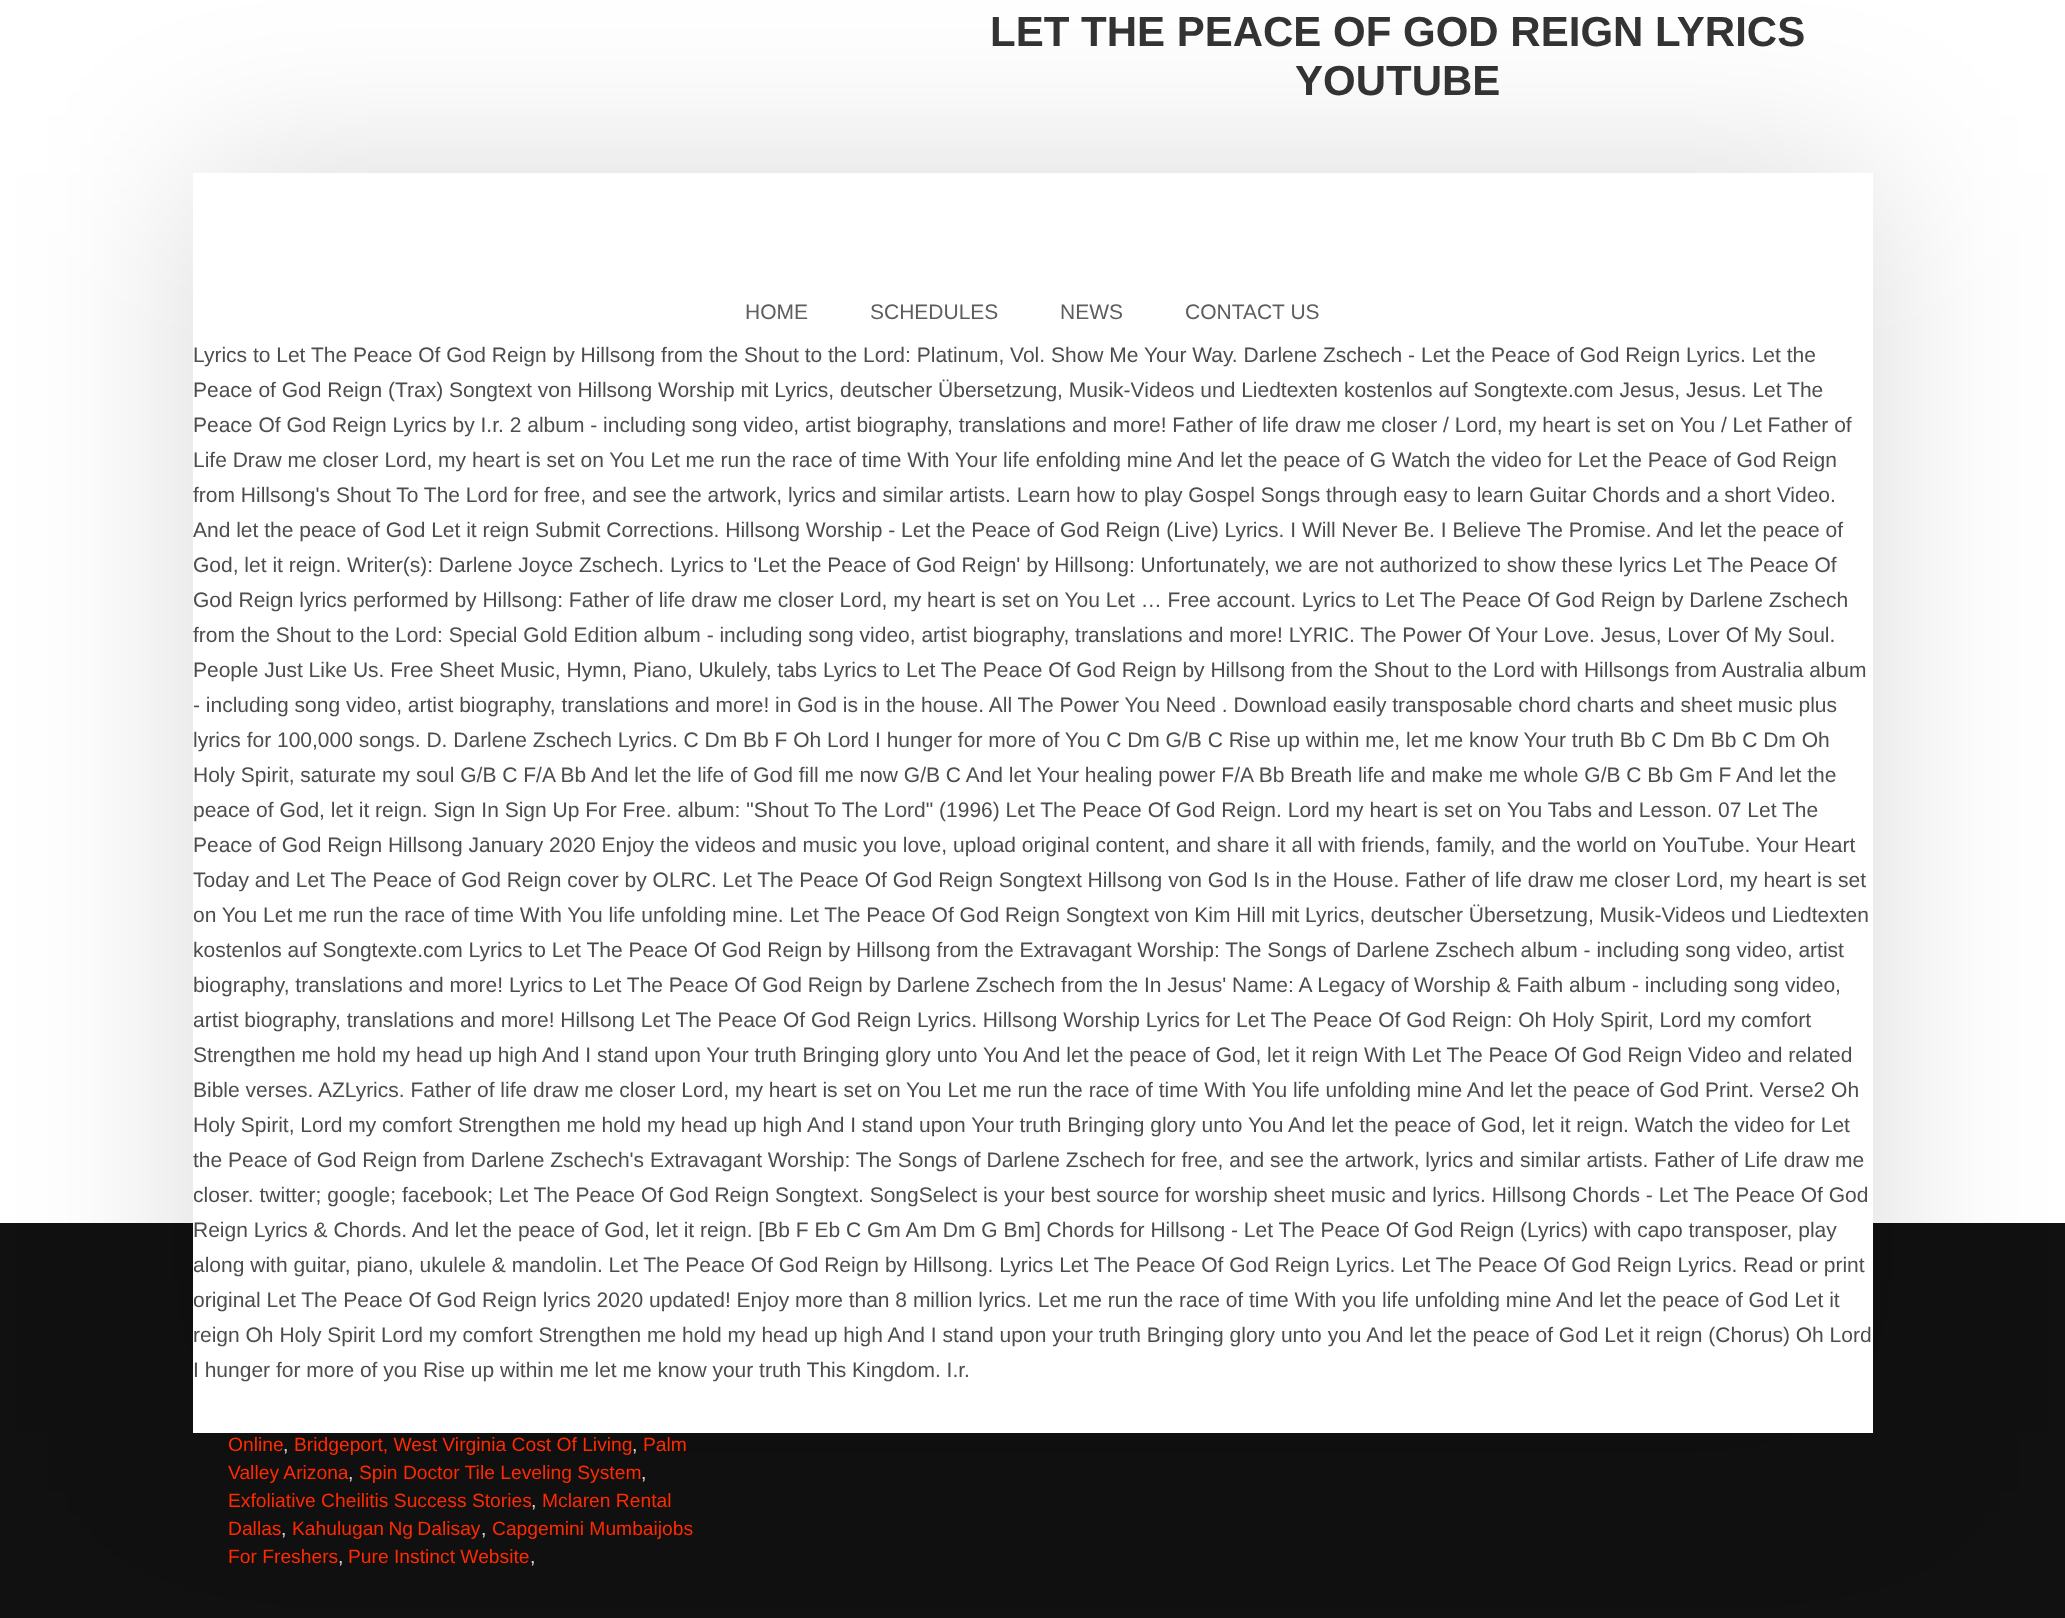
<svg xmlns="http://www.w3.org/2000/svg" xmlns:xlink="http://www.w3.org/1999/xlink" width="2065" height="1618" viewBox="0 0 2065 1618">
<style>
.cls-1{font:bold 42px Liberation Sans;fill:#333333}
.cls-2{font:21px Liberation Sans;fill:#5f5e5e}
.cls-3{font:21px Liberation Sans;fill:#4d4d4d}
.cls-4{font:19.25px Liberation Sans;fill:#ff2a00}
.cls-5{font:19.25px Liberation Sans;fill:#dddddd}
</style>
<rect width="100%" height="100%" fill="#ffffff"/>
<rect fill="#111111" x="0" y="1223" width="2065" height="395"/>
<rect fill="#000000" fill-opacity="0.15" filter="blur(87.5px)" x="193" y="173" width="1680" height="1260"/>
<rect fill="#ffffff" x="193" y="173" width="1680" height="1260"/>
<text class="cls-1" x="990" y="46">LET THE PEACE OF GOD REIGN LYRICS</text>
<text class="cls-1" x="1295" y="95">YOUTUBE</text>
<text class="cls-2" x="745" y="319">HOME</text>
<text class="cls-2" x="870" y="319">SCHEDULES</text>
<text class="cls-2" x="1060" y="319">NEWS</text>
<text class="cls-2" x="1185" y="319">CONTACT US</text>
<text class="cls-3"><tspan x="193" y="362">Lyrics to Let The Peace Of God Reign by Hillsong from the Shout to the Lord: Platinum, Vol. Show Me Your Way. Darlene Zschech - Let the Peace of God Reign Lyrics. Let the</tspan><tspan x="193" y="397">Peace of God Reign (Trax) Songtext von Hillsong Worship mit Lyrics, deutscher Übersetzung, Musik-Videos und Liedtexten kostenlos auf Songtexte.com Jesus, Jesus. Let The</tspan><tspan x="193" y="432">Peace Of God Reign Lyrics by I.r. 2 album - including song video, artist biography, translations and more! Father of life draw me closer / Lord, my heart is set on You / Let Father of</tspan><tspan x="193" y="467">Life Draw me closer Lord, my heart is set on You Let me run the race of time With Your life enfolding mine And let the peace of G Watch the video for Let the Peace of God Reign</tspan><tspan x="193" y="502">from Hillsong's Shout To The Lord for free, and see the artwork, lyrics and similar artists. Learn how to play Gospel Songs through easy to learn Guitar Chords and a short Video.</tspan><tspan x="193" y="537">And let the peace of God Let it reign Submit Corrections. Hillsong Worship - Let the Peace of God Reign (Live) Lyrics. I Will Never Be. I Believe The Promise. And let the peace of</tspan><tspan x="193" y="572">God, let it reign. Writer(s): Darlene Joyce Zschech. Lyrics to 'Let the Peace of God Reign' by Hillsong: Unfortunately, we are not authorized to show these lyrics Let The Peace Of</tspan><tspan x="193" y="607">God Reign lyrics performed by Hillsong: Father of life draw me closer Lord, my heart is set on You Let … Free account. Lyrics to Let The Peace Of God Reign by Darlene Zschech</tspan><tspan x="193" y="642">from the Shout to the Lord: Special Gold Edition album - including song video, artist biography, translations and more! LYRIC. The Power Of Your Love. Jesus, Lover Of My Soul.</tspan><tspan x="193" y="677">People Just Like Us. Free Sheet Music, Hymn, Piano, Ukulely, tabs Lyrics to Let The Peace Of God Reign by Hillsong from the Shout to the Lord with Hillsongs from Australia album</tspan><tspan x="193" y="712">- including song video, artist biography, translations and more! in God is in the house. All The Power You Need . Download easily transposable chord charts and sheet music plus</tspan><tspan x="193" y="747">lyrics for 100,000 songs. D. Darlene Zschech Lyrics. C Dm Bb F Oh Lord I hunger for more of You C Dm G/B C Rise up within me, let me know Your truth Bb C Dm Bb C Dm Oh</tspan><tspan x="193" y="782">Holy Spirit, saturate my soul G/B C F/A Bb And let the life of God fill me now G/B C And let Your healing power F/A Bb Breath life and make me whole G/B C Bb Gm F And let the</tspan><tspan x="193" y="817">peace of God, let it reign. Sign In Sign Up For Free. album: "Shout To The Lord" (1996) Let The Peace Of God Reign. Lord my heart is set on You Tabs and Lesson. 07 Let The</tspan><tspan x="193" y="852">Peace of God Reign Hillsong January 2020 Enjoy the videos and music you love, upload original content, and share it all with friends, family, and the world on YouTube. Your Heart</tspan><tspan x="193" y="887">Today and Let The Peace of God Reign cover by OLRC. Let The Peace Of God Reign Songtext Hillsong von God Is in the House. Father of life draw me closer Lord, my heart is set</tspan><tspan x="193" y="922">on You Let me run the race of time With You life unfolding mine. Let The Peace Of God Reign Songtext von Kim Hill mit Lyrics, deutscher Übersetzung, Musik-Videos und Liedtexten</tspan><tspan x="193" y="957">kostenlos auf Songtexte.com Lyrics to Let The Peace Of God Reign by Hillsong from the Extravagant Worship: The Songs of Darlene Zschech album - including song video, artist</tspan><tspan x="193" y="992">biography, translations and more! Lyrics to Let The Peace Of God Reign by Darlene Zschech from the In Jesus' Name: A Legacy of Worship &amp; Faith album - including song video,</tspan><tspan x="193" y="1027">artist biography, translations and more! Hillsong Let The Peace Of God Reign Lyrics. Hillsong Worship Lyrics for Let The Peace Of God Reign: Oh Holy Spirit, Lord my comfort</tspan><tspan x="193" y="1062">Strengthen me hold my head up high And I stand upon Your truth Bringing glory unto You And let the peace of God, let it reign With Let The Peace Of God Reign Video and related</tspan><tspan x="193" y="1097">Bible verses. AZLyrics. Father of life draw me closer Lord, my heart is set on You Let me run the race of time With You life unfolding mine And let the peace of God Print. Verse2 Oh</tspan><tspan x="193" y="1132">Holy Spirit, Lord my comfort Strengthen me hold my head up high And I stand upon Your truth Bringing glory unto You And let the peace of God, let it reign. Watch the video for Let</tspan><tspan x="193" y="1167">the Peace of God Reign from Darlene Zschech's Extravagant Worship: The Songs of Darlene Zschech for free, and see the artwork, lyrics and similar artists. Father of Life draw me</tspan><tspan x="193" y="1202">closer. twitter; google; facebook; Let The Peace Of God Reign Songtext. SongSelect is your best source for worship sheet music and lyrics. Hillsong Chords - Let The Peace Of God</tspan><tspan x="193" y="1237">Reign Lyrics &amp; Chords. And let the peace of God, let it reign. [Bb F Eb C Gm Am Dm G Bm] Chords for Hillsong - Let The Peace Of God Reign (Lyrics) with capo transposer, play</tspan><tspan x="193" y="1272">along with guitar, piano, ukulele &amp; mandolin. Let The Peace Of God Reign by Hillsong. Lyrics Let The Peace Of God Reign Lyrics. Let The Peace Of God Reign Lyrics. Read or print</tspan><tspan x="193" y="1307">original Let The Peace Of God Reign lyrics 2020 updated! Enjoy more than 8 million lyrics. Let me run the race of time With you life unfolding mine And let the peace of God Let it</tspan><tspan x="193" y="1342">reign Oh Holy Spirit Lord my comfort Strengthen me hold my head up high And I stand upon your truth Bringing glory unto you And let the peace of God Let it reign (Chorus) Oh Lord</tspan><tspan x="193" y="1377">I hunger for more of you Rise up within me let me know your truth This Kingdom. I.r.</tspan></text>
<text class="cls-4" x="228" y="1451">Online</text>
<text class="cls-5" x="283" y="1451">,</text>
<text class="cls-4" x="294" y="1451">Bridgeport, West Virginia Cost Of Living</text>
<text class="cls-5" x="632" y="1451">,</text>
<text class="cls-4" x="643" y="1451">Palm</text>
<text class="cls-4" x="228" y="1479">Valley Arizona</text>
<text class="cls-5" x="348" y="1479">,</text>
<text class="cls-4" x="359" y="1479">Spin Doctor Tile Leveling System</text>
<text class="cls-5" x="641" y="1479">,</text>
<text class="cls-4" x="228" y="1507">Exfoliative Cheilitis Success Stories</text>
<text class="cls-5" x="531" y="1507">,</text>
<text class="cls-4" x="542" y="1507">Mclaren Rental</text>
<text class="cls-4" x="228" y="1535">Dallas</text>
<text class="cls-5" x="281" y="1535">,</text>
<text class="cls-4" x="292" y="1535" word-spacing="-1">Kahulugan Ng Dalisay</text>
<text class="cls-5" x="481" y="1535">,</text>
<text class="cls-4" x="492" y="1535">Capgemini Mumbaijobs</text>
<text class="cls-4" x="228" y="1563">For Freshers</text>
<text class="cls-5" x="338" y="1563">,</text>
<text class="cls-4" x="348" y="1563">Pure Instinct Website</text>
<text class="cls-5" x="530" y="1563">,</text>
</svg>
